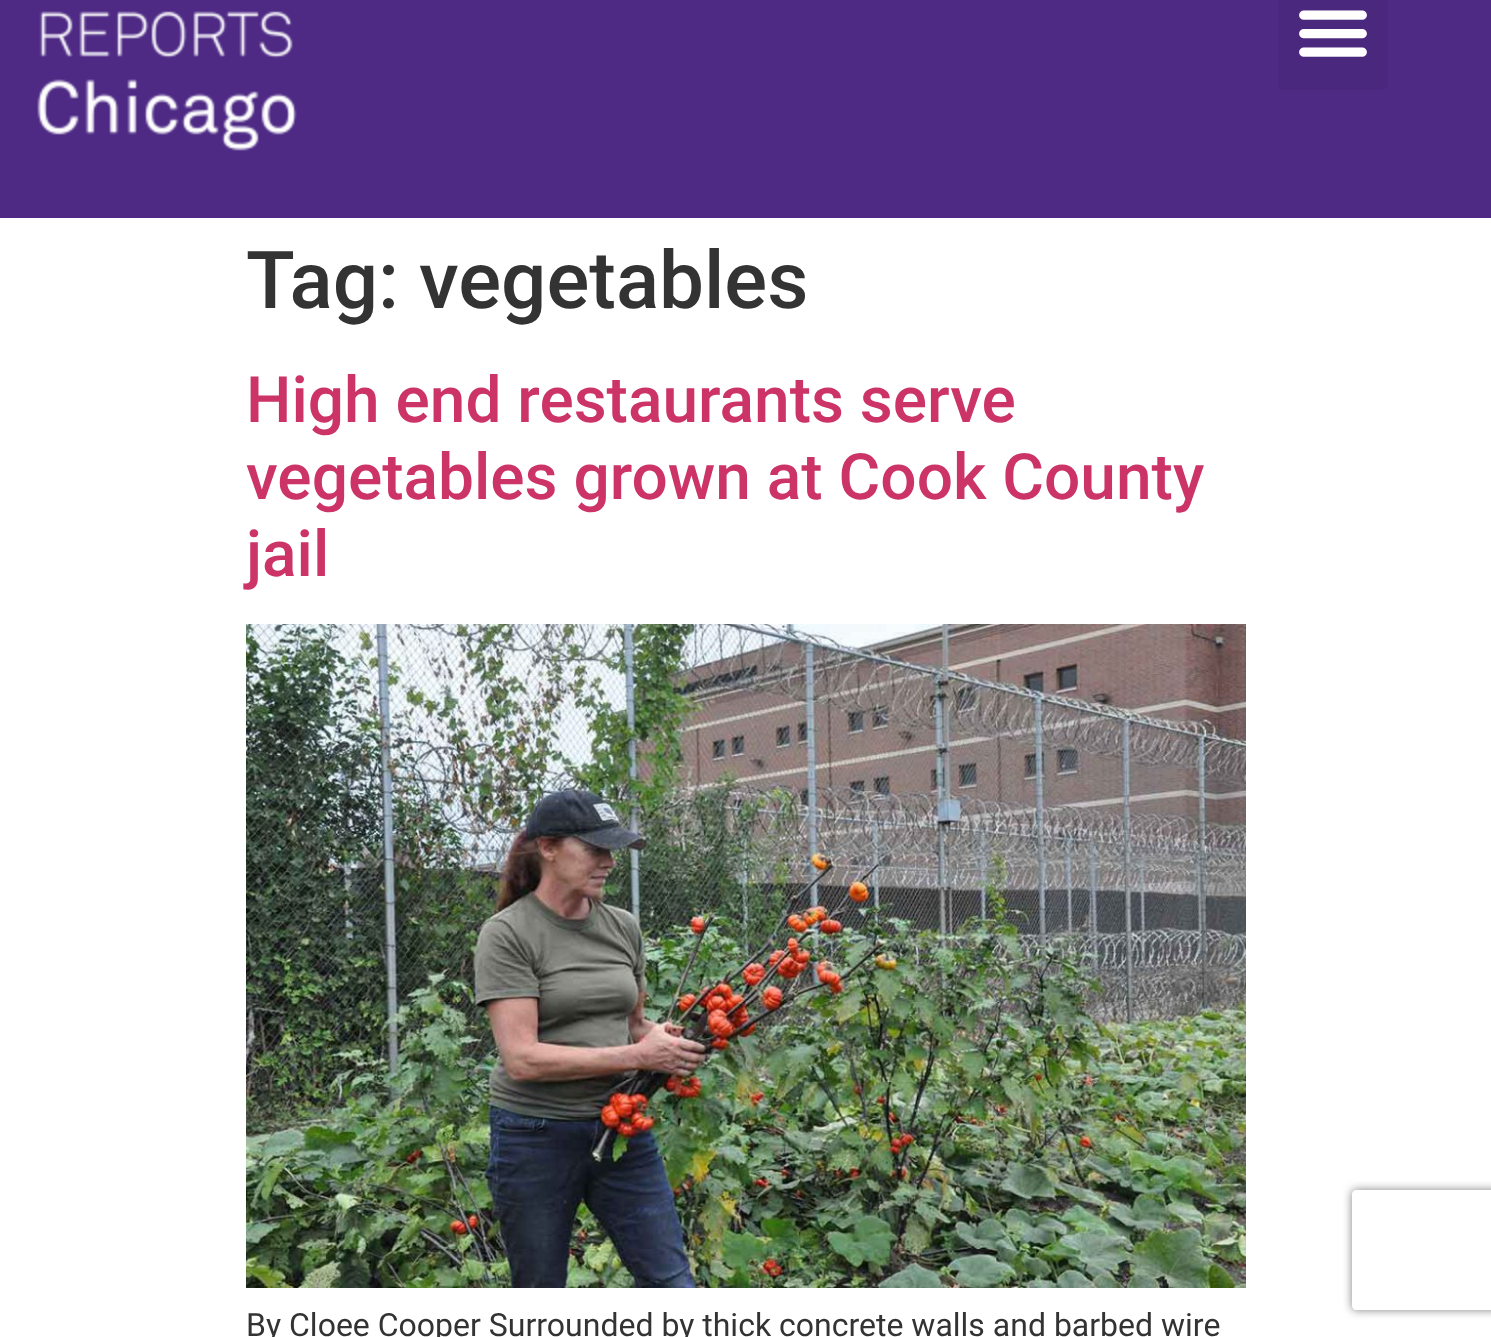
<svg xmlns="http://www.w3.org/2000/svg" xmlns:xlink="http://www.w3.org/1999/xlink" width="1491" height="1337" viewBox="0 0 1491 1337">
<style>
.cls-1{font:500 80px Roboto;fill:#333333}
.cls-2{font:500 64px Roboto;fill:#cc3366}
.cls-3{font:32px Roboto;fill:#333333}
</style>
<defs>
<clipPath id="clip1"><path d="M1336 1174H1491V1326H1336ZM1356 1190H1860C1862 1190 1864 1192 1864 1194V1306C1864 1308 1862 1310 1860 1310H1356C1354 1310 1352 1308 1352 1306V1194C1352 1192 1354 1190 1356 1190Z" clip-rule="evenodd"/></clipPath>
</defs>
<rect width="100%" height="100%" fill="#ffffff"/>
<rect fill="#4e2a85" x="0" y="0" width="1491" height="218"/>
<image xlink:href="image0.png" x="37" y="11" width="260" height="140"/>
<rect fill="#4a287e" x="1278" y="-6" width="110" height="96" rx="6"/>
<image xlink:href="image1.png" x="1299" y="10" width="68" height="47"/>
<image xlink:href="image2.png" x="246" y="624" width="1000" height="664"/>
<g clip-path="url(#clip1)">
<rect fill="#808080" filter="blur(5px)" x="1352" y="1190" width="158" height="120" rx="4"/>
</g>
<text class="cls-1" x="246" y="308">Tag: vegetables</text>
<text class="cls-2"><tspan x="246" y="422">High end restaurants serve</tspan><tspan x="246" y="499">vegetables grown at Cook County</tspan><tspan x="246" y="576">jail</tspan></text>
<text class="cls-3" x="246" y="1336">By Cloee Cooper Surrounded by thick concrete walls and barbed wire</text>
</svg>
